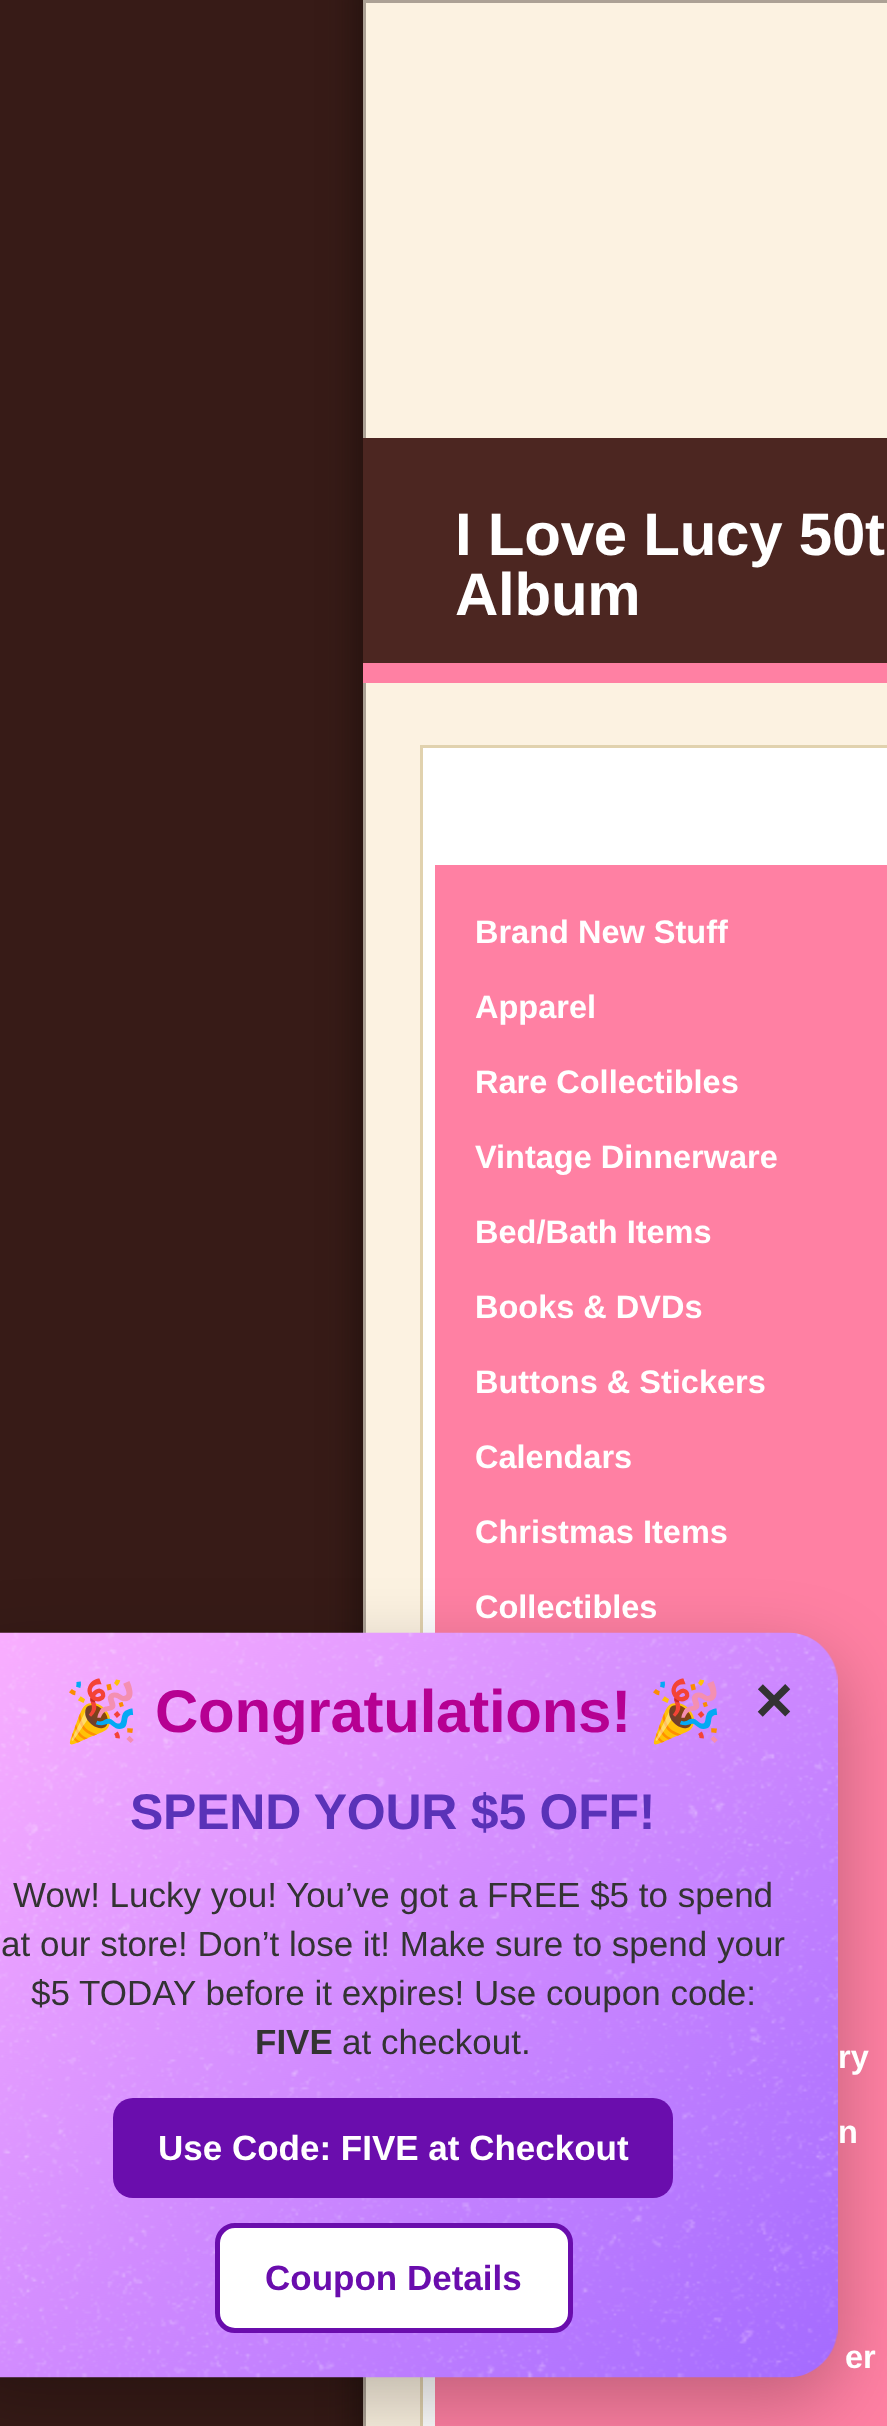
<svg xmlns="http://www.w3.org/2000/svg" xmlns:xlink="http://www.w3.org/1999/xlink" width="887" height="2426" viewBox="0 0 887 2426">
<style>
.cls-1{font:bold 60px Liberation Sans;letter-spacing:-0.25px;fill:#ffffff}
.cls-2{font:bold 32.5px Liberation Sans;fill:#ffffff}
.cls-3{font:bold 60px Noto Color Emoji;letter-spacing:-0.25px;fill:#b60092}
.cls-4{font:bold 60px Liberation Sans;letter-spacing:-0.25px;fill:#b60092}
.cls-5{font:bold 65px Liberation Sans;fill:#333333}
.cls-6{font:bold 50px Liberation Sans;letter-spacing:-0.25px;fill:#5a32b8}
.cls-7{font:35px Liberation Sans;fill:#333333}
.cls-8{font:bold 35px Liberation Sans;fill:#333333}
.cls-9{font:bold 35px Liberation Sans;fill:#ffffff}
.cls-10{font:bold 35px Liberation Sans;fill:#6a0dad}
</style>
<rect width="100%" height="100%" fill="#371b17"/>
<rect fill="#1c0e0a" filter="blur(20px)" x="363" y="-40" width="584" height="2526"/>
<rect fill="#fcf2e1" x="366" y="3" width="521" height="2423"/>
<rect fill="#aca195" x="363" y="0" width="524" height="3"/>
<rect fill="#aca195" x="363" y="0" width="3" height="2426"/>
<rect fill="#4c2621" x="363" y="438" width="524" height="225"/>
<rect fill="#ff80a3" x="363" y="663" width="524" height="20"/>
<rect fill="#ffffff" stroke="#e1d2ae" stroke-width="3" x="421.5" y="746.5" width="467" height="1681"/>
<rect fill="#ff80a3" x="435" y="865" width="452" height="780"/>
<rect fill="#ff80a3" x="820" y="1645" width="67" height="75"/>
<rect fill="#ff80a3" x="838" y="1720" width="49" height="600"/>
<rect fill="#ff80a3" x="435" y="2320" width="452" height="106"/>
<rect fill="#000000" fill-opacity="0.25" filter="blur(37.5px)" x="-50" y="1658" width="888" height="745" rx="50"/>
<image xlink:href="image0.png" x="0" y="1632" width="838" height="746"/>
<rect fill="#6a0dad" x="113" y="2098" width="560" height="100" rx="20"/>
<rect fill="#ffffff" stroke="#6a0dad" stroke-width="5" x="217.5" y="2225.5" width="353" height="105" rx="17.5"/>
<text class="cls-1"><tspan x="455" y="555">I Love Lucy 50t</tspan><tspan x="455" y="615">Album</tspan></text>
<text class="cls-2" x="475" y="943">Brand New Stuff</text>
<text class="cls-2" x="475" y="1018">Apparel</text>
<text class="cls-2" x="475" y="1093">Rare Collectibles</text>
<text class="cls-2" x="475" y="1168">Vintage Dinnerware</text>
<text class="cls-2" x="475" y="1243">Bed/Bath Items</text>
<text class="cls-2" x="475" y="1318">Books &amp; DVDs</text>
<text class="cls-2" x="475" y="1393">Buttons &amp; Stickers</text>
<text class="cls-2" x="475" y="1468">Calendars</text>
<text class="cls-2" x="475" y="1543">Christmas Items</text>
<text class="cls-2" x="475" y="1618">Collectibles</text>
<text class="cls-2" x="838" y="2068">ry</text>
<text class="cls-2" x="838" y="2143">n</text>
<text class="cls-2" x="845" y="2368">er</text>
<text class="cls-3" x="64" y="1732">🎉</text>
<text class="cls-4" x="155" y="1732">Congratulations!</text>
<text class="cls-3" x="648" y="1732">🎉</text>
<text class="cls-5" x="755" y="1722">×</text>
<text class="cls-6" x="130" y="1829">SPEND YOUR $5 OFF!</text>
<text class="cls-7" x="13" y="1907">Wow! Lucky you! You’ve got a FREE $5 to spend</text>
<text class="cls-7" x="1" y="1956">at our store! Don’t lose it! Make sure to spend your</text>
<text class="cls-7" x="31" y="2005">$5 TODAY before it expires! Use coupon code:</text>
<text class="cls-8" x="255" y="2054">FIVE</text>
<text class="cls-7" x="342" y="2054">at checkout.</text>
<text class="cls-9" x="158" y="2160">Use Code: FIVE at Checkout</text>
<text class="cls-10" x="265" y="2290">Coupon Details</text>
</svg>
